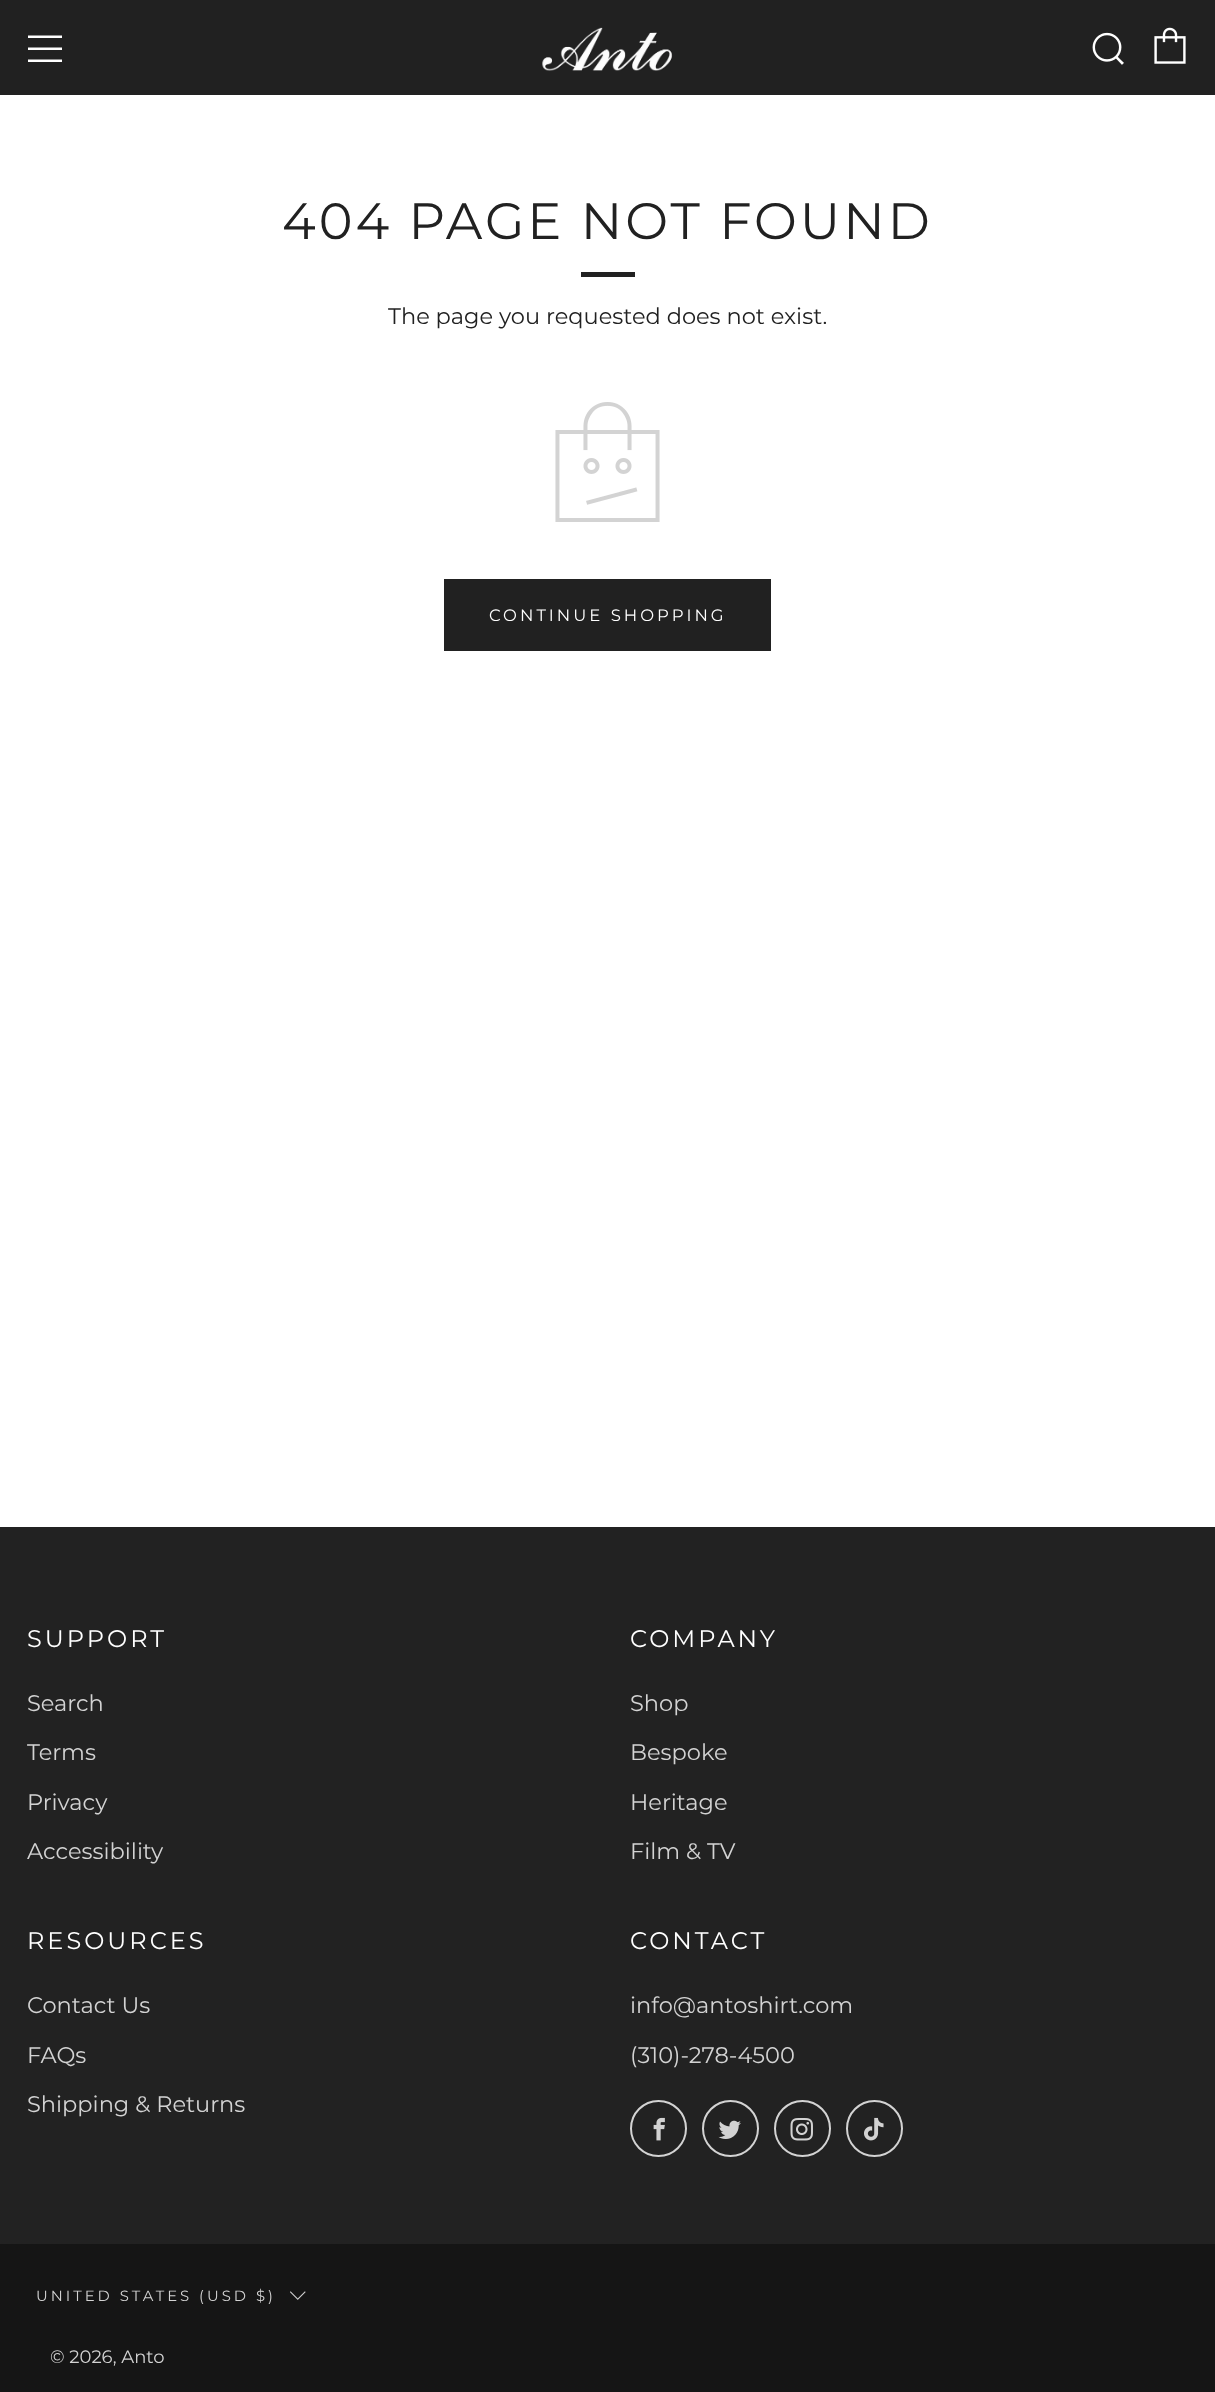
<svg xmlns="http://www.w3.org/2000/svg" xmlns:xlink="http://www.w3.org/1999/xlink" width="1215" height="2392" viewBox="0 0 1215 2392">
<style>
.cls-1{font:51px Montserrat;letter-spacing:3px;fill:#212121}
.cls-2{font:22.5px Montserrat;fill:#212121}
.cls-3{font:16.5px Montserrat;letter-spacing:3px;fill:#ffffff}
.cls-4{font:24px Montserrat;letter-spacing:3px;fill:#ffffff}
.cls-5{font:22.5px Montserrat;fill:#d3d3d3}
.cls-6{font:14.8px Montserrat;letter-spacing:3px;fill:#d3d3d3}
.cls-7{font:18px Montserrat;fill:#d3d3d3}
</style>
<rect width="100%" height="100%" fill="#ffffff"/>
<rect fill="#212121" x="0" y="0" width="1215" height="95"/>
<path fill="#ffffff" d="M28 38H62V35.5H28ZM28 62H62V59.5H28ZM28 50H62V47.5H28Z"/>
<image xlink:href="image0.png" x="542" y="27" width="131" height="44"/>
<image xlink:href="image1.png" x="1092" y="32" width="32" height="33"/>
<image xlink:href="image2.png" x="1154" y="27" width="32" height="37"/>
<rect fill="#212121" x="581" y="272" width="54" height="5"/>
<image xlink:href="image3.png" x="555" y="402" width="105" height="120"/>
<rect fill="#212121" x="444" y="579" width="327" height="72"/>
<rect fill="#222222" x="0" y="1527" width="1215" height="717"/>
<circle fill="none" stroke="#d3d3d3" stroke-width="2" cx="658.5" cy="2128.5" r="27.5"/>
<image xlink:href="image4.png" x="653" y="2117" width="12" height="24"/>
<circle fill="none" stroke="#d3d3d3" stroke-width="2" cx="730.5" cy="2128.5" r="27.5"/>
<image xlink:href="image5.png" x="718" y="2120" width="23" height="19"/>
<circle fill="none" stroke="#d3d3d3" stroke-width="2" cx="802.5" cy="2128.5" r="27.5"/>
<image xlink:href="image6.png" x="790" y="2118" width="23" height="23"/>
<circle fill="none" stroke="#d3d3d3" stroke-width="2" cx="874.5" cy="2128.5" r="27.5"/>
<image xlink:href="image7.png" x="864" y="2117" width="20" height="24"/>
<rect fill="#151515" x="0" y="2244" width="1215" height="148"/>
<image xlink:href="image8.png" x="290" y="2291" width="16" height="9"/>
<text class="cls-1" x="282" y="239">404 PAGE NOT FOUND</text>
<text class="cls-2" x="388" y="324">The page you requested does not exist.</text>
<text class="cls-3" x="489" y="621">CONTINUE SHOPPING</text>
<text class="cls-4" x="27" y="1647">SUPPORT</text>
<text class="cls-5" x="27" y="1711">Search</text>
<text class="cls-5" x="27" y="1760">Terms</text>
<text class="cls-5" x="27" y="1810">Privacy</text>
<text class="cls-5" x="27" y="1859">Accessibility</text>
<text class="cls-4" x="630" y="1647">COMPANY</text>
<text class="cls-5" x="630" y="1711">Shop</text>
<text class="cls-5" x="630" y="1760">Bespoke</text>
<text class="cls-5" x="630" y="1810">Heritage</text>
<text class="cls-5" x="630" y="1859">Film &amp; TV</text>
<text class="cls-4" x="27" y="1949">RESOURCES</text>
<text class="cls-5" x="27" y="2013">Contact Us</text>
<text class="cls-5" x="27" y="2063">FAQs</text>
<text class="cls-5" x="27" y="2112">Shipping &amp; Returns</text>
<text class="cls-4" x="630" y="1949">CONTACT</text>
<text class="cls-5" x="630" y="2013">info@antoshirt.com</text>
<text class="cls-5" x="630" y="2063">(310)-278-4500</text>
<text class="cls-6" x="36" y="2301">UNITED STATES (USD $)</text>
<text class="cls-7" x="50" y="2363">© 2026, Anto</text>
</svg>
